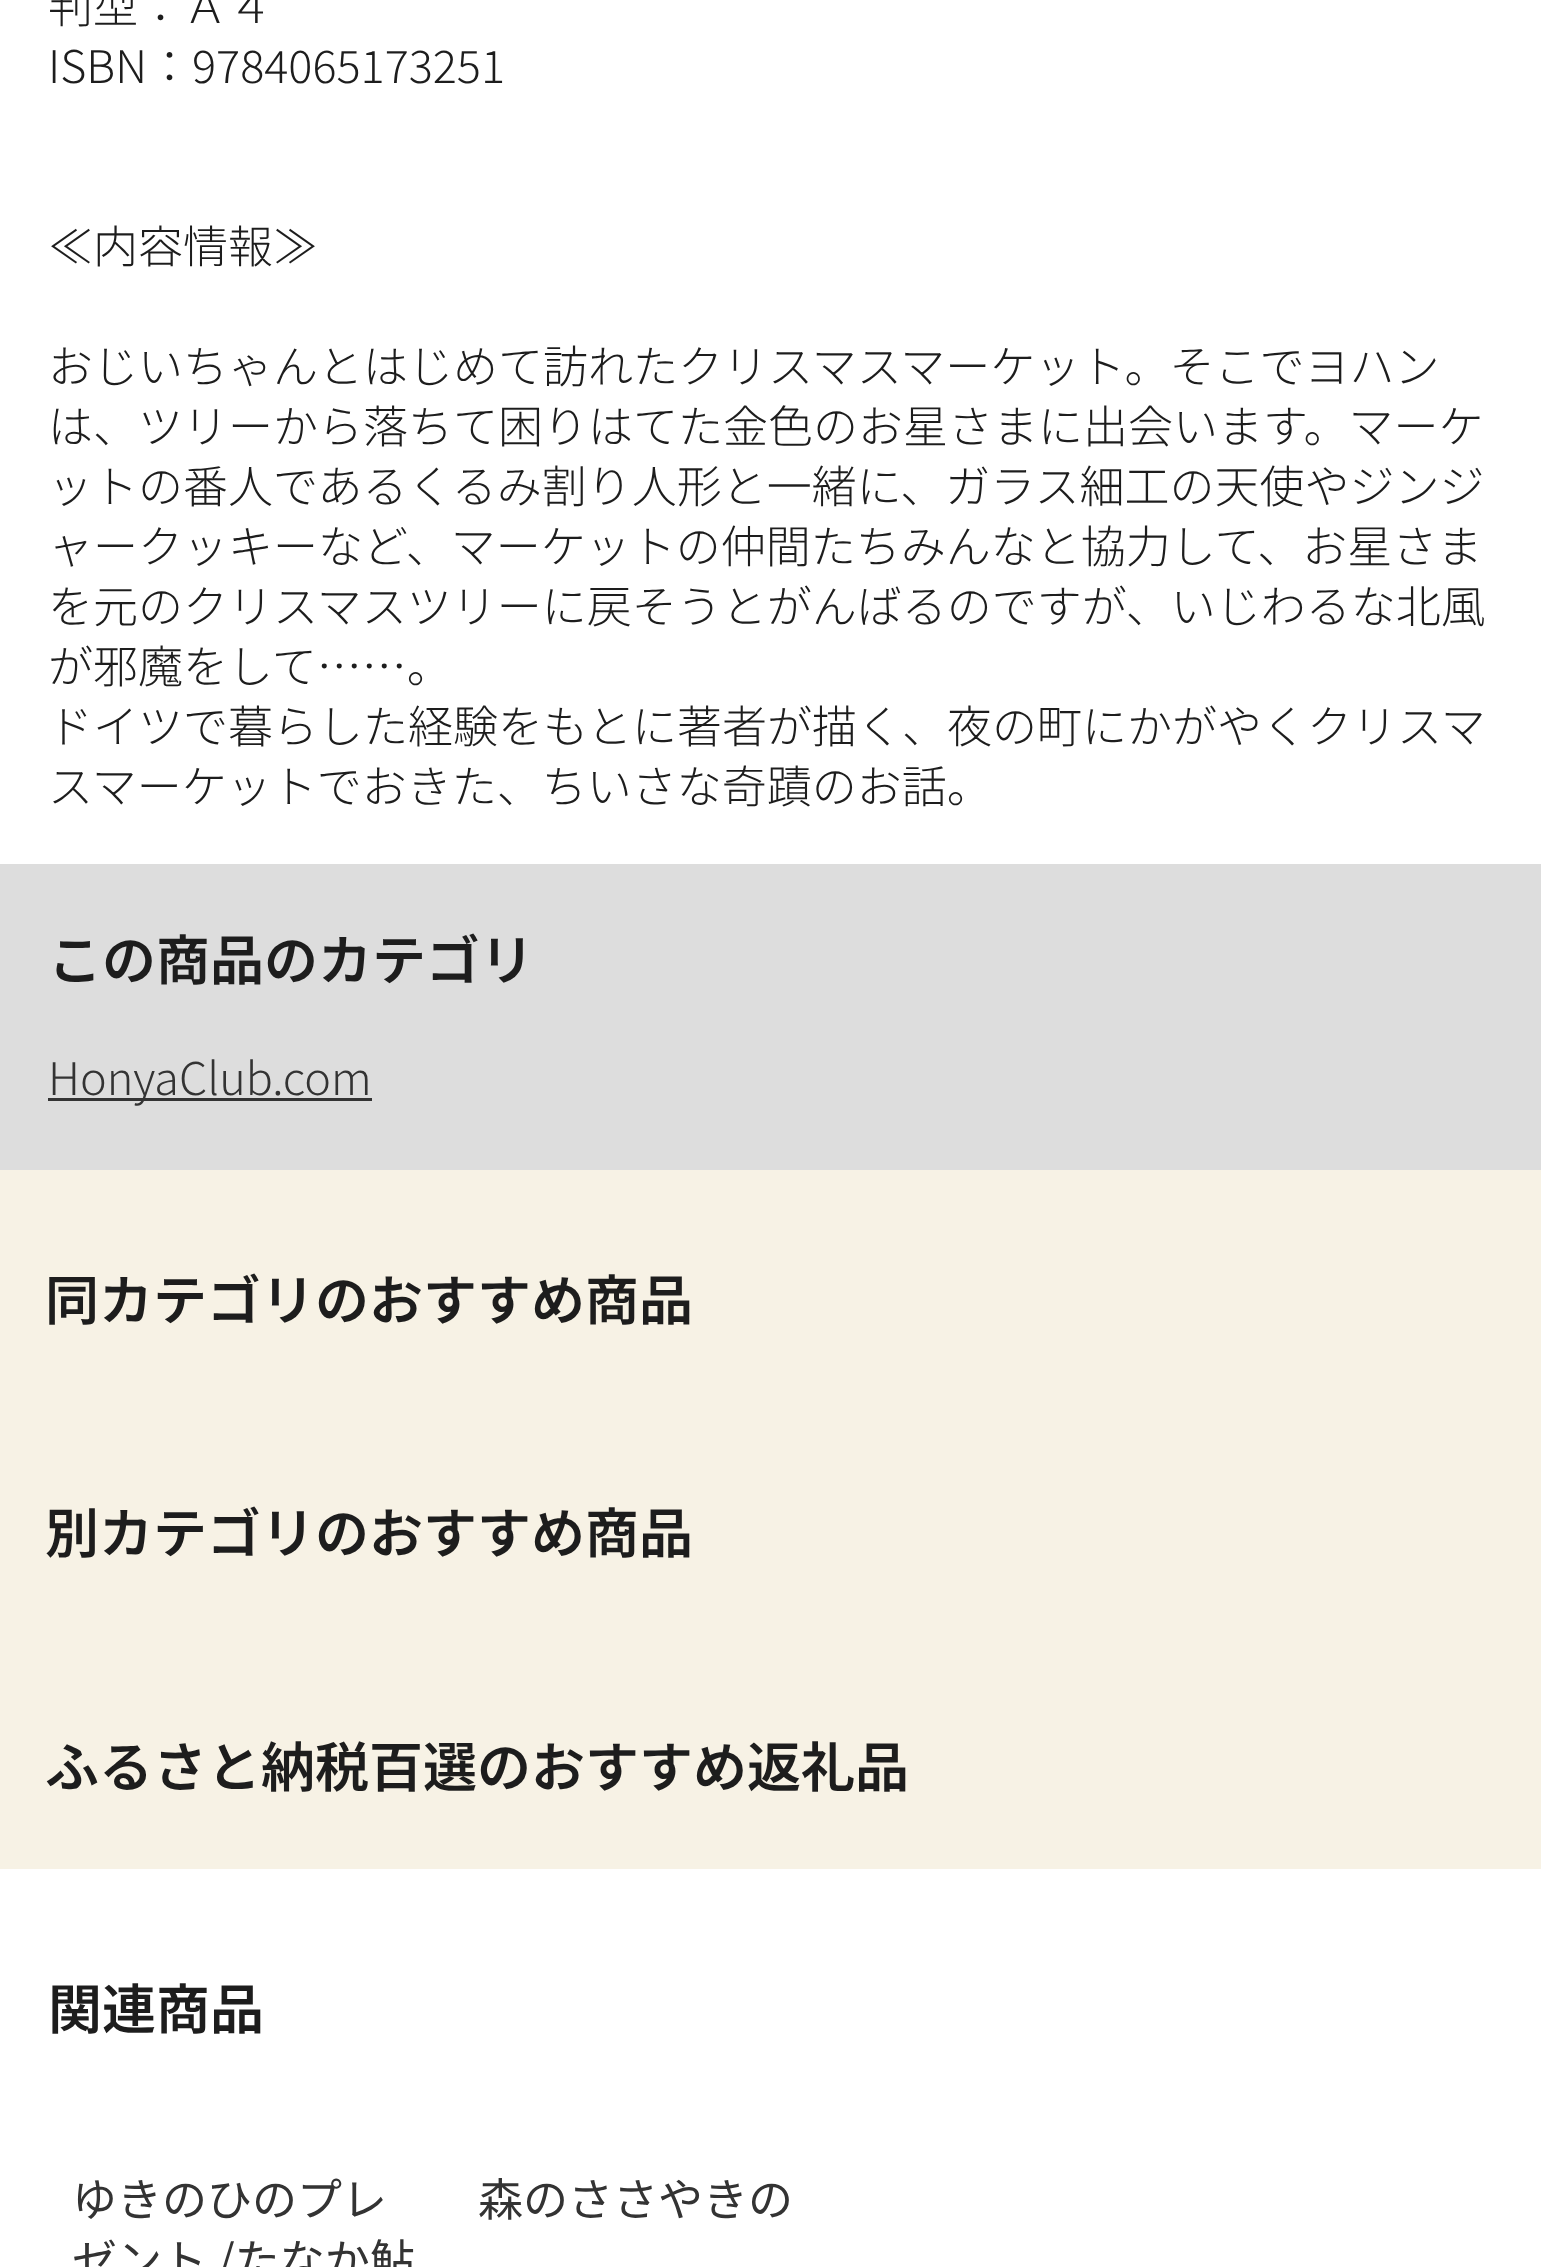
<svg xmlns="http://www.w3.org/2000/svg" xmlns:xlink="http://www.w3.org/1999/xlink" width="1541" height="2267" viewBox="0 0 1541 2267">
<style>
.cls-1{font:300 45px Noto Sans JP;fill:#1d1d1d}
.cls-2{font:600 54px Noto Sans JP;fill:#1d1d1d}
.cls-3{font:300 45px Noto Sans JP;fill:#333333}
.cls-4{font:45px Noto Sans JP;fill:#333333}
</style>
<rect width="100%" height="100%" fill="#ffffff"/>
<rect fill="#dddddd" x="0" y="864" width="1541" height="306"/>
<rect fill="#333333" x="48" y="1098" width="324" height="3"/>
<rect fill="#f7f2e5" x="0" y="1170" width="1541" height="699"/>
<text class="cls-1"><tspan x="48" y="23">判型：Ａ４</tspan><tspan x="48" y="83">ISBN：9784065173251</tspan></text>
<text class="cls-1" x="48" y="263">≪内容情報≫</text>
<text class="cls-1"><tspan x="48" y="383">おじいちゃんとはじめて訪れたクリスマスマーケット。そこでヨハン</tspan><tspan x="48" y="443">は、ツリーから落ちて困りはてた金色のお星さまに出会います。マーケ</tspan><tspan x="48" y="503">ットの番人であるくるみ割り人形と一緒に、ガラス細工の天使やジンジ</tspan><tspan x="48" y="563">ャークッキーなど、マーケットの仲間たちみんなと協力して、お星さま</tspan><tspan x="48" y="623">を元のクリスマスツリーに戻そうとがんばるのですが、いじわるな北風</tspan><tspan x="48" y="683">が邪魔をして……。</tspan><tspan x="48" y="743">ドイツで暮らした経験をもとに著者が描く、夜の町にかがやくクリスマ</tspan><tspan x="48" y="803">スマーケットでおきた、ちいさな奇蹟のお話。</tspan></text>
<text class="cls-2" x="48" y="980">この商品のカテゴリ</text>
<text class="cls-3" x="48" y="1095">HonyaClub.com</text>
<text class="cls-2" x="45" y="1320">同カテゴリのおすすめ商品</text>
<text class="cls-2" x="45" y="1553">別カテゴリのおすすめ商品</text>
<text class="cls-2" x="45" y="1787">ふるさと納税百選のおすすめ返礼品</text>
<text class="cls-2" x="48" y="2029">関連商品</text>
<text class="cls-4"><tspan x="72" y="2216">ゆきのひのプレ</tspan><tspan x="72" y="2277">ゼント /たなか鮎</tspan></text>
<text class="cls-4" x="478" y="2216">森のささやきの</text>
</svg>
